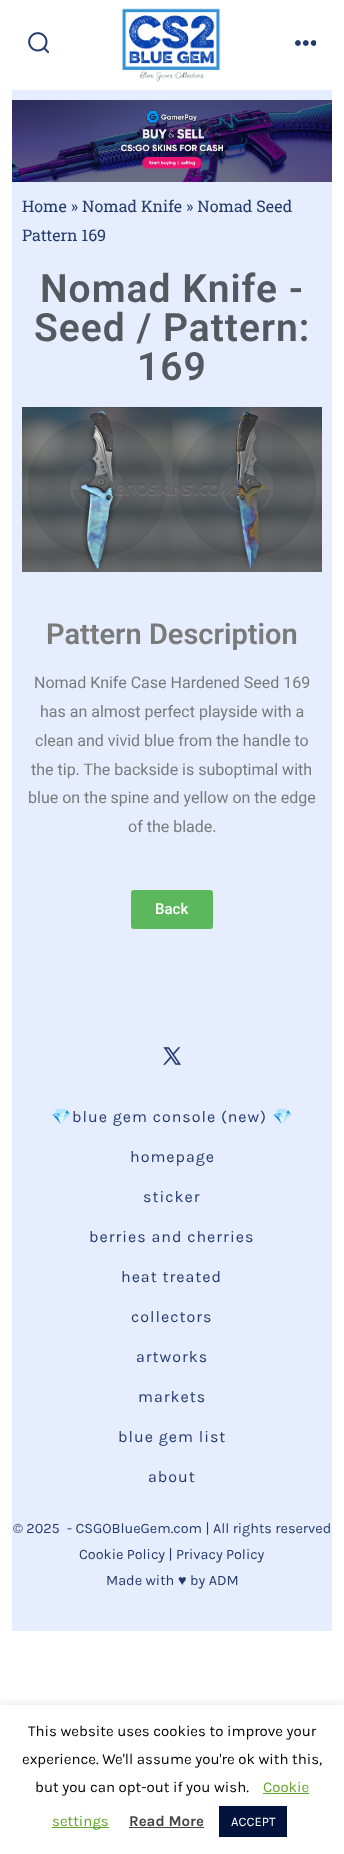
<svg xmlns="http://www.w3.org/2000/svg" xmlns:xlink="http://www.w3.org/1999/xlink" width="344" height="1854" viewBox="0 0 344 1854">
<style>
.cls-1{font:16px Roboto Slab;fill:#233a6c}
.cls-2{font:600 39px Roboto;letter-spacing:1px;fill:#54595f}
.cls-3{font:600 29px Roboto;fill:#7a7a7a}
.cls-4{font:16px Roboto;fill:#7a7a7a}
.cls-5{font:500 15px Roboto;fill:#ffffff}
.cls-6{font:16px Noto Color Emoji;letter-spacing:1px;fill:#233a6c}
.cls-7{font:16px Karla;letter-spacing:1px;fill:#233a6c}
.cls-8{font:14.4px Karla;fill:#233a6c}
.cls-9{font:14.4px Liberation Sans;fill:#233a6c}
.cls-10{font:15px Karla;fill:#000000}
.cls-11{font:15px Karla;fill:#62a329}
.cls-12{font:bold 15px Karla;fill:#444444}
.cls-13{font:13px Karla;fill:#ffffff}
</style>
<defs>
<clipPath id="clip1"><rect x="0" y="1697" width="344" height="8"/></clipPath>
</defs>
<rect width="100%" height="100%" fill="#ffffff"/>
<rect fill="#e5edff" x="12" y="90" width="320" height="1541"/>
<image xlink:href="image0.png" x="28" y="32" width="21" height="22"/>
<image xlink:href="image1.png" x="122" y="8" width="99" height="74"/>
<image xlink:href="image2.png" x="295" y="40" width="21" height="6"/>
<image xlink:href="image3.png" x="12" y="100" width="320" height="82"/>
<image xlink:href="image4.png" x="22" y="407" width="300" height="165"/>
<rect fill="#5cb85c" x="131" y="890" width="82" height="39" rx="3"/>
<image xlink:href="image5.png" x="163" y="1047" width="18" height="18"/>
<g clip-path="url(#clip1)">
<rect fill="#acabab" fill-opacity="0.3" filter="blur(5px)" x="0" y="1704" width="344" height="149"/>
</g>
<rect fill="#62a329" x="263" y="1793" width="46" height="1"/>
<rect fill="#62a329" x="52" y="1827" width="57" height="1"/>
<rect fill="#444444" x="129" y="1827" width="75" height="1"/>
<rect fill="#01133d" x="219" y="1806" width="68" height="31"/>
<text class="cls-1"><tspan x="22" y="212">Home » Nomad Knife » Nomad Seed</tspan><tspan x="22" y="241">Pattern 169</tspan></text>
<text class="cls-2" x="40" y="302">Nomad Knife -</text>
<text class="cls-2" x="34" y="341">Seed / Pattern:</text>
<text class="cls-2" x="137" y="380">169</text>
<text class="cls-3" x="46" y="644">Pattern Description</text>
<text class="cls-4" x="34" y="688">Nomad Knife Case Hardened Seed 169</text>
<text class="cls-4" x="40" y="717">has an almost perfect playside with a</text>
<text class="cls-4" x="35" y="746">clean and vivid blue from the handle to</text>
<text class="cls-4" x="31" y="775">the tip. The backside is suboptimal with</text>
<text class="cls-4" x="28" y="803">blue on the spine and yellow on the edge</text>
<text class="cls-4" x="128" y="832">of the blade.</text>
<text class="cls-5" x="155" y="914">Back</text>
<text class="cls-6" x="51" y="1122">💎</text>
<text class="cls-7" x="72" y="1122">blue gem console (new)</text>
<text class="cls-6" x="272" y="1122">💎</text>
<text class="cls-7" x="130" y="1162">homepage</text>
<text class="cls-7" x="143" y="1202">sticker</text>
<text class="cls-7" x="89" y="1242">berries and cherries</text>
<text class="cls-7" x="121" y="1282">heat treated</text>
<text class="cls-7" x="131" y="1322">collectors</text>
<text class="cls-7" x="136" y="1362">artworks</text>
<text class="cls-7" x="138" y="1402">markets</text>
<text class="cls-7" x="118" y="1442">blue gem list</text>
<text class="cls-7" x="148" y="1482">about</text>
<text class="cls-8" x="13" y="1533">© 2025</text>
<text class="cls-8" x="67" y="1533">- CSGOBlueGem.com | All rights reserved</text>
<text class="cls-8" x="79" y="1559">Cookie Policy | Privacy Policy</text>
<text class="cls-8" x="106" y="1585">Made with</text>
<text class="cls-9" x="178" y="1585">♥</text>
<text class="cls-8" x="190" y="1585">by ADM</text>
<text class="cls-10" x="28" y="1736">This website uses cookies to improve your</text>
<text class="cls-10" x="22" y="1764">experience. We'll assume you're ok with this,</text>
<text class="cls-10" x="35" y="1792">but you can opt-out if you wish.</text>
<text class="cls-11" x="263" y="1792">Cookie</text>
<text class="cls-11" x="52" y="1826">settings</text>
<text class="cls-12" x="129" y="1826">Read More</text>
<text class="cls-13" x="231" y="1826">ACCEPT</text>
</svg>
